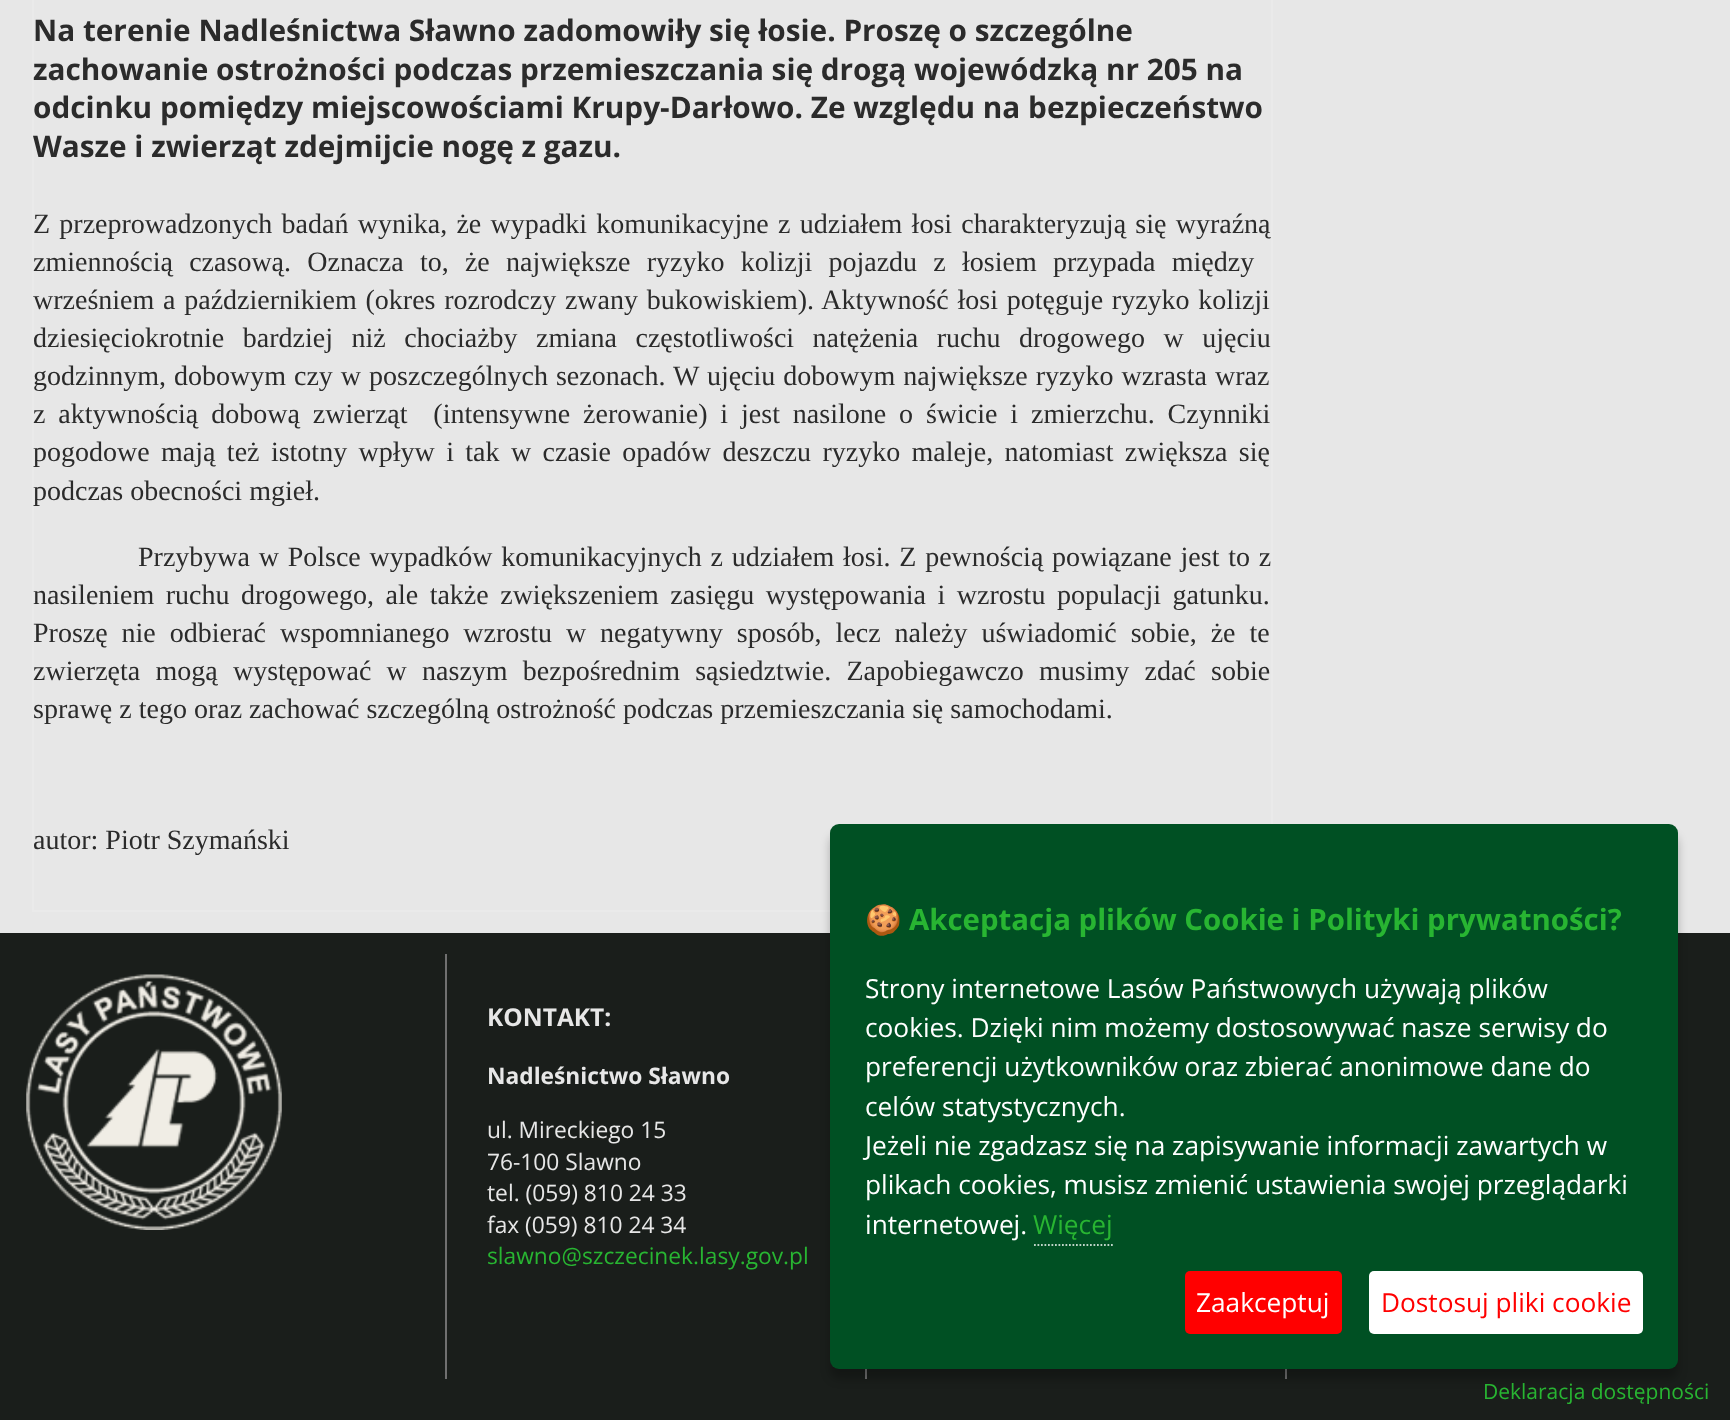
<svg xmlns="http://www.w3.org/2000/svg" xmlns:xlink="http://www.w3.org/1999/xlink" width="1730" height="1420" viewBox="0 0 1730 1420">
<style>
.cls-1{font:bold 29.75px Open Sans;fill:#2b2b2b}
.cls-2{font:28px Liberation Serif;fill:#2b2b2b}
.cls-3{font:bold 24.5px Open Sans;fill:#e7e7e7}
.cls-4{font:bold 22.75px Open Sans;fill:#e7e7e7}
.cls-5{font:22.75px Open Sans;fill:#e7e7e7}
.cls-6{font:22.75px Open Sans;fill:#28b532}
.cls-7{font:21px Open Sans;fill:#28b532}
.cls-8{font:bold 29.4px Noto Color Emoji;fill:#28b532}
.cls-9{font:bold 29.4px Open Sans;fill:#28b532}
.cls-10{font:26.25px Open Sans;fill:#ffffff}
.cls-11{font:26.25px Open Sans;fill:#28b532}
.cls-12{font:26.25px Open Sans;fill:#ff0000}
</style>
<rect width="100%" height="100%" fill="#e7e7e7"/>
<rect fill="#eaeaea" x="1271" y="0" width="2" height="824"/>
<rect fill="#eaeaea" x="32" y="910" width="798" height="2"/>
<rect fill="#eaeaea" x="32" y="0" width="2" height="912"/>
<rect fill="#1a1e1b" x="0" y="933" width="1730" height="487"/>
<rect fill="#707070" x="445" y="954" width="2" height="425"/>
<image xlink:href="image0.png" x="26" y="974" width="256" height="256"/>
<rect fill="#707070" x="865" y="1369" width="2" height="10"/>
<rect fill="#707070" x="1285" y="1369" width="2" height="10"/>
<rect fill="#000000" fill-opacity="0.25" filter="blur(5px)" x="830" y="835" width="848" height="544" rx="9"/>
<rect fill="#005023" x="830" y="824" width="848" height="545" rx="9"/>
<path fill="none" stroke="#bfd3c8" stroke-width="1.8" stroke-dasharray="1.75 1.75" d="M1034 1245H1113"/>
<rect fill="#ff0000" x="1185" y="1271" width="157" height="63" rx="5"/>
<rect fill="#ffffff" x="1369" y="1271" width="274" height="63" rx="5"/>
<text class="cls-1"><tspan x="33" y="41">Na terenie Nadleśnictwa Sławno zadomowiły się łosie. Proszę o szczególne</tspan><tspan x="33" y="80">zachowanie ostrożności podczas przemieszczania się drogą wojewódzką nr 205 na</tspan><tspan x="33" y="118">odcinku pomiędzy miejscowościami Krupy-Darłowo. Ze względu na bezpieczeństwo</tspan><tspan x="33" y="157">Wasze i zwierząt zdejmijcie nogę z gazu.</tspan></text>
<text class="cls-2" xml:space="preserve"><tspan x="33" y="233" word-spacing="2.25">Z przeprowadzonych badań wynika, że wypadki komunikacyjne z udziałem łosi charakteryzują się wyraźną</tspan><tspan x="33" y="271" word-spacing="9.25">zmiennością czasową. Oznacza to, że największe ryzyko kolizji pojazdu z łosiem przypada między</tspan><tspan x="33" y="309" word-spacing="1.75">wrześniem a październikiem (okres rozrodczy zwany bukowiskiem). Aktywność łosi potęguje ryzyko kolizji</tspan><tspan x="33" y="347" word-spacing="11.5">dziesięciokrotnie bardziej niż chociażby zmiana częstotliwości natężenia ruchu drogowego w ujęciu</tspan><tspan x="33" y="385" word-spacing="1">godzinnym, dobowym czy w poszczególnych sezonach. W ujęciu dobowym największe ryzyko wzrasta wraz</tspan><tspan x="33" y="423" word-spacing="5.9">z aktywnością dobową zwierząt  (intensywne żerowanie) i jest nasilone o świcie i zmierzchu. Czynniki</tspan><tspan x="33" y="461" word-spacing="4.4">pogodowe mają też istotny wpływ i tak w czasie opadów deszczu ryzyko maleje, natomiast zwiększa się</tspan><tspan x="33" y="500">podczas obecności mgieł.</tspan></text>
<text class="cls-2" x="138" y="566" word-spacing="1.75">Przybywa w Polsce wypadków komunikacyjnych z udziałem łosi. Z pewnością powiązane jest to z</text>
<text class="cls-2"><tspan x="33" y="604" word-spacing="4.5">nasileniem ruchu drogowego, ale także zwiększeniem zasięgu występowania i wzrostu populacji gatunku.</tspan><tspan x="33" y="642" word-spacing="6.9">Proszę nie odbierać wspomnianego wzrostu w negatywny sposób, lecz należy uświadomić sobie, że te</tspan><tspan x="33" y="680" word-spacing="8.25">zwierzęta mogą występować w naszym bezpośrednim sąsiedztwie. Zapobiegawczo musimy zdać sobie</tspan><tspan x="33" y="718">sprawę z tego oraz zachować szczególną ostrożność podczas przemieszczania się samochodami.</tspan></text>
<text class="cls-2" x="33" y="849">autor: Piotr Szymański</text>
<text class="cls-3" x="487" y="1026">KONTAKT:</text>
<text class="cls-4" x="487" y="1084">Nadleśnictwo Sławno</text>
<text class="cls-5"><tspan x="487" y="1138">ul. Mireckiego 15</tspan><tspan x="487" y="1170">76-100 Slawno</tspan><tspan x="487" y="1201">tel. (059) 810 24 33</tspan><tspan x="487" y="1233">fax (059) 810 24 34</tspan></text>
<text class="cls-6" x="487" y="1264">slawno@szczecinek.lasy.gov.pl</text>
<text class="cls-7" x="1483" y="1399">Deklaracja dostępności</text>
<text class="cls-8" x="865" y="930">🍪</text>
<text class="cls-9" x="909" y="930">Akceptacja plików Cookie i Polityki prywatności?</text>
<text class="cls-10"><tspan x="865" y="998">Strony internetowe Lasów Państwowych używają plików</tspan><tspan x="865" y="1037">cookies. Dzięki nim możemy dostosowywać nasze serwisy do</tspan><tspan x="865" y="1076">preferencji użytkowników oraz zbierać anonimowe dane do</tspan><tspan x="865" y="1116">celów statystycznych.</tspan><tspan x="865" y="1155">Jeżeli nie zgadzasz się na zapisywanie informacji zawartych w</tspan><tspan x="865" y="1194">plikach cookies, musisz zmienić ustawienia swojej przeglądarki</tspan><tspan x="865" y="1234">internetowej.</tspan></text>
<text class="cls-11" x="1033" y="1234">Więcej</text>
<text class="cls-10" x="1196" y="1312">Zaakceptuj</text>
<text class="cls-12" x="1381" y="1312">Dostosuj pliki cookie</text>
</svg>
